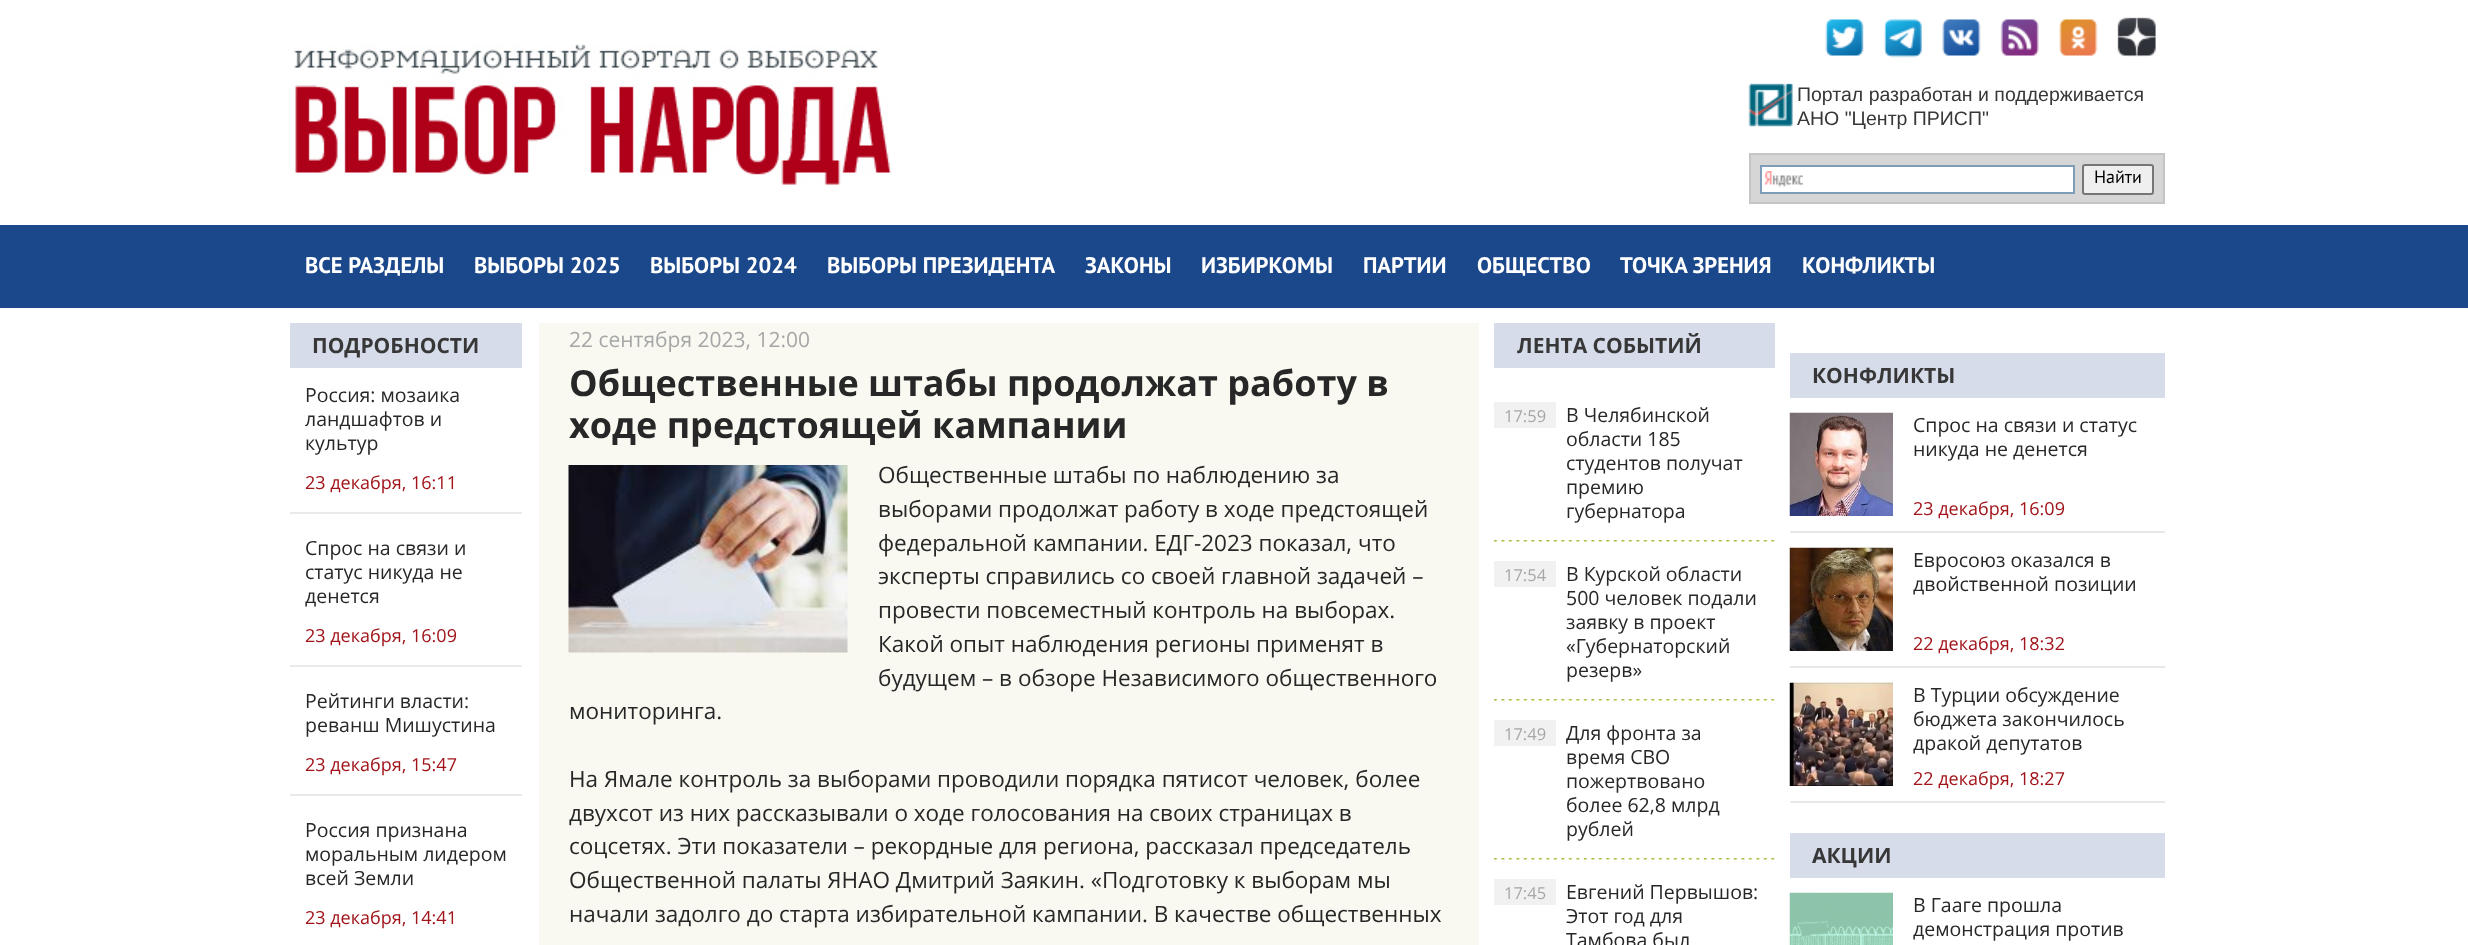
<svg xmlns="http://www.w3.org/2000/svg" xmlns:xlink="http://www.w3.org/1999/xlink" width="2468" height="945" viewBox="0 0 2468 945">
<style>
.cls-1{font:19.5px Liberation Sans;fill:#373737}
.cls-2{font:18px PT Sans;fill:#000000}
.cls-3{font:bold 22.5px PT Sans;fill:#ffffff}
.cls-4{font:bold 21px Open Sans;fill:#373737}
.cls-5{font:19.5px Open Sans;fill:#272727}
.cls-6{font:18px Open Sans;fill:#a1141a}
.cls-7{font:21px Open Sans;fill:#a7a7a7}
.cls-8{font:bold 36px Open Sans;fill:#272727}
.cls-9{font:22.5px Open Sans;fill:#272727}
.cls-10{font:16.5px Open Sans;fill:#a7a7a7}
</style>
<defs>
<clipPath id="clip1"><rect x="1913" y="548" width="252" height="48"/></clipPath>
<clipPath id="clip2"><rect x="1913" y="683" width="252" height="72"/></clipPath>
<clipPath id="clip3"><rect x="1913" y="893" width="252" height="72"/></clipPath>
</defs>
<rect width="100%" height="100%" fill="#ffffff"/>
<image xlink:href="image0.png" x="1825" y="19" width="39" height="37"/>
<image xlink:href="image1.png" x="1884" y="19" width="38" height="39"/>
<image xlink:href="image2.png" x="1942" y="19" width="39" height="37"/>
<image xlink:href="image3.png" x="2000" y="19" width="39" height="37"/>
<image xlink:href="image4.png" x="2059" y="19" width="39" height="37"/>
<image xlink:href="image5.png" x="2117" y="17" width="39" height="40"/>
<image xlink:href="image6.png" x="293" y="44" width="599" height="141"/>
<image xlink:href="image7.png" x="1748" y="83" width="45" height="44"/>
<rect fill="#d6d6d6" stroke="#c5c5c5" stroke-width="2" x="1750" y="154" width="414" height="49"/>
<rect fill="#ffffff" x="1762" y="167" width="311" height="25"/>
<image xlink:href="image8.png" x="1764" y="171" width="39" height="17"/>
<rect fill="none" stroke="#7f9db9" stroke-width="2" x="1761" y="166" width="313" height="27"/>
<rect fill="#efefef" stroke="#767676" stroke-width="2" x="2083" y="165" width="70" height="29" rx="2"/>
<rect fill="#1b488b" x="0" y="225" width="2468" height="83"/>
<rect fill="#d6dcea" x="290" y="323" width="232" height="45"/>
<rect fill="#eaeaea" x="290" y="512" width="232" height="2"/>
<rect fill="#eaeaea" x="290" y="665" width="232" height="2"/>
<rect fill="#eaeaea" x="290" y="794" width="232" height="2"/>
<rect fill="#f9f9f2" x="539" y="323" width="940" height="622"/>
<image xlink:href="image9.png" x="568" y="465" width="280" height="188"/>
<rect fill="#d6dcea" x="1494" y="323" width="281" height="45"/>
<image xlink:href="image10.png" x="1494" y="540" width="281" height="2"/>
<rect fill="#f1f1f1" x="1494" y="402" width="62" height="26"/>
<image xlink:href="image10.png" x="1494" y="699" width="281" height="2"/>
<rect fill="#f1f1f1" x="1494" y="561" width="62" height="26"/>
<image xlink:href="image11.png" x="1494" y="858" width="281" height="2"/>
<rect fill="#f1f1f1" x="1494" y="720" width="62" height="26"/>
<rect fill="#f1f1f1" x="1494" y="879" width="62" height="26"/>
<rect fill="#d6dcea" x="1790" y="353" width="375" height="45"/>
<rect fill="#e8e8e8" x="1790" y="531" width="375" height="2"/>
<image xlink:href="image12.png" x="1789" y="412" width="104" height="104"/>
<rect fill="#e8e8e8" x="1790" y="666" width="375" height="2"/>
<image xlink:href="image13.png" x="1789" y="547" width="104" height="104"/>
<rect fill="#e8e8e8" x="1790" y="801" width="375" height="2"/>
<image xlink:href="image14.png" x="1789" y="682" width="104" height="104"/>
<rect fill="#d6dcea" x="1790" y="833" width="375" height="45"/>
<image xlink:href="image15.png" x="1789" y="892" width="104" height="53"/>
<text class="cls-1"><tspan x="1797" y="101">Портал разработан и поддерживается</tspan><tspan x="1797" y="125">АНО "Центр ПРИСП"</tspan></text>
<text class="cls-2" x="2094" y="183">Найти</text>
<text class="cls-3" x="305" y="273">ВСЕ РАЗДЕЛЫ</text>
<text class="cls-3" x="474" y="273">ВЫБОРЫ 2025</text>
<text class="cls-3" x="650" y="273">ВЫБОРЫ 2024</text>
<text class="cls-3" x="827" y="273">ВЫБОРЫ ПРЕЗИДЕНТА</text>
<text class="cls-3" x="1085" y="273">ЗАКОНЫ</text>
<text class="cls-3" x="1201" y="273">ИЗБИРКОМЫ</text>
<text class="cls-3" x="1363" y="273">ПАРТИИ</text>
<text class="cls-3" x="1477" y="273">ОБЩЕСТВО</text>
<text class="cls-3" x="1620" y="273">ТОЧКА ЗРЕНИЯ</text>
<text class="cls-3" x="1802" y="273">КОНФЛИКТЫ</text>
<text class="cls-4" x="312" y="353">ПОДРОБНОСТИ</text>
<text class="cls-5"><tspan x="305" y="402">Россия: мозаика</tspan><tspan x="305" y="426">ландшафтов и</tspan><tspan x="305" y="450">культур</tspan></text>
<text class="cls-6" x="305" y="489">23 декабря, 16:11</text>
<text class="cls-5"><tspan x="305" y="555">Спрос на связи и</tspan><tspan x="305" y="579">статус никуда не</tspan><tspan x="305" y="603">денется</tspan></text>
<text class="cls-6" x="305" y="642">23 декабря, 16:09</text>
<text class="cls-5"><tspan x="305" y="708">Рейтинги власти:</tspan><tspan x="305" y="732">реванш Мишустина</tspan></text>
<text class="cls-6" x="305" y="771">23 декабря, 15:47</text>
<text class="cls-5"><tspan x="305" y="837">Россия признана</tspan><tspan x="305" y="861">моральным лидером</tspan><tspan x="305" y="885">всей Земли</tspan></text>
<text class="cls-6" x="305" y="924">23 декабря, 14:41</text>
<text class="cls-7" x="569" y="347">22 сентября 2023, 12:00</text>
<text class="cls-8"><tspan x="569" y="396">Общественные штабы продолжат работу в</tspan><tspan x="569" y="438">ходе предстоящей кампании</tspan></text>
<text class="cls-9"><tspan x="878" y="483">Общественные штабы по наблюдению за</tspan><tspan x="878" y="517">выборами продолжат работу в ходе предстоящей</tspan><tspan x="878" y="551">федеральной кампании. ЕДГ-2023 показал, что</tspan><tspan x="878" y="584">эксперты справились со своей главной задачей –</tspan><tspan x="878" y="618">провести повсеместный контроль на выборах.</tspan><tspan x="878" y="652">Какой опыт наблюдения регионы применят в</tspan><tspan x="878" y="686">будущем – в обзоре Независимого общественного</tspan></text>
<text class="cls-9" x="569" y="719">мониторинга.</text>
<text class="cls-9"><tspan x="569" y="787">На Ямале контроль за выборами проводили порядка пятисот человек, более</tspan><tspan x="569" y="821">двухсот из них рассказывали о ходе голосования на своих страницах в</tspan><tspan x="569" y="854">соцсетях. Эти показатели – рекордные для региона, рассказал председатель</tspan><tspan x="569" y="888">Общественной палаты ЯНАО Дмитрий Заякин. «Подготовку к выборам мы</tspan><tspan x="569" y="922">начали задолго до старта избирательной кампании. В качестве общественных</tspan></text>
<text class="cls-4" x="1517" y="353">ЛЕНТА СОБЫТИЙ</text>
<text class="cls-10" x="1504" y="422">17:59</text>
<text class="cls-5"><tspan x="1566" y="422">В Челябинской</tspan><tspan x="1566" y="446">области 185</tspan><tspan x="1566" y="470">студентов получат</tspan><tspan x="1566" y="494">премию</tspan><tspan x="1566" y="518">губернатора</tspan></text>
<text class="cls-10" x="1504" y="581">17:54</text>
<text class="cls-5"><tspan x="1566" y="581">В Курской области</tspan><tspan x="1566" y="605">500 человек подали</tspan><tspan x="1566" y="629">заявку в проект</tspan><tspan x="1566" y="653">«Губернаторский</tspan><tspan x="1566" y="677">резерв»</tspan></text>
<text class="cls-10" x="1504" y="740">17:49</text>
<text class="cls-5"><tspan x="1566" y="740">Для фронта за</tspan><tspan x="1566" y="764">время СВО</tspan><tspan x="1566" y="788">пожертвовано</tspan><tspan x="1566" y="812">более 62,8 млрд</tspan><tspan x="1566" y="836">рублей</tspan></text>
<text class="cls-10" x="1504" y="899">17:45</text>
<text class="cls-5"><tspan x="1566" y="899">Евгений Первышов:</tspan><tspan x="1566" y="923">Этот год для</tspan><tspan x="1566" y="947">Тамбова был</tspan></text>
<text class="cls-4" x="1812" y="383">КОНФЛИКТЫ</text>
<text class="cls-5"><tspan x="1913" y="432">Спрос на связи и статус</tspan><tspan x="1913" y="456">никуда не денется</tspan></text>
<text class="cls-6" x="1913" y="515">23 декабря, 16:09</text>
<text class="cls-5" x="1913" y="567">Евросоюз оказался в</text>
<g clip-path="url(#clip1)">
<text class="cls-5" x="1913" y="591">двойственной позиции</text>
</g>
<text class="cls-6" x="1913" y="650">22 декабря, 18:32</text>
<text class="cls-5"><tspan x="1913" y="702">В Турции обсуждение</tspan><tspan x="1913" y="726">бюджета закончилось</tspan></text>
<g clip-path="url(#clip2)">
<text class="cls-5" x="1913" y="750">дракой депутатов</text>
</g>
<text class="cls-6" x="1913" y="785">22 декабря, 18:27</text>
<text class="cls-4" x="1812" y="863">АКЦИИ</text>
<text class="cls-5" x="1913" y="912">В Гааге прошла</text>
<g clip-path="url(#clip3)">
<text class="cls-5" x="1913" y="936">демонстрация против</text>
</g>
</svg>
